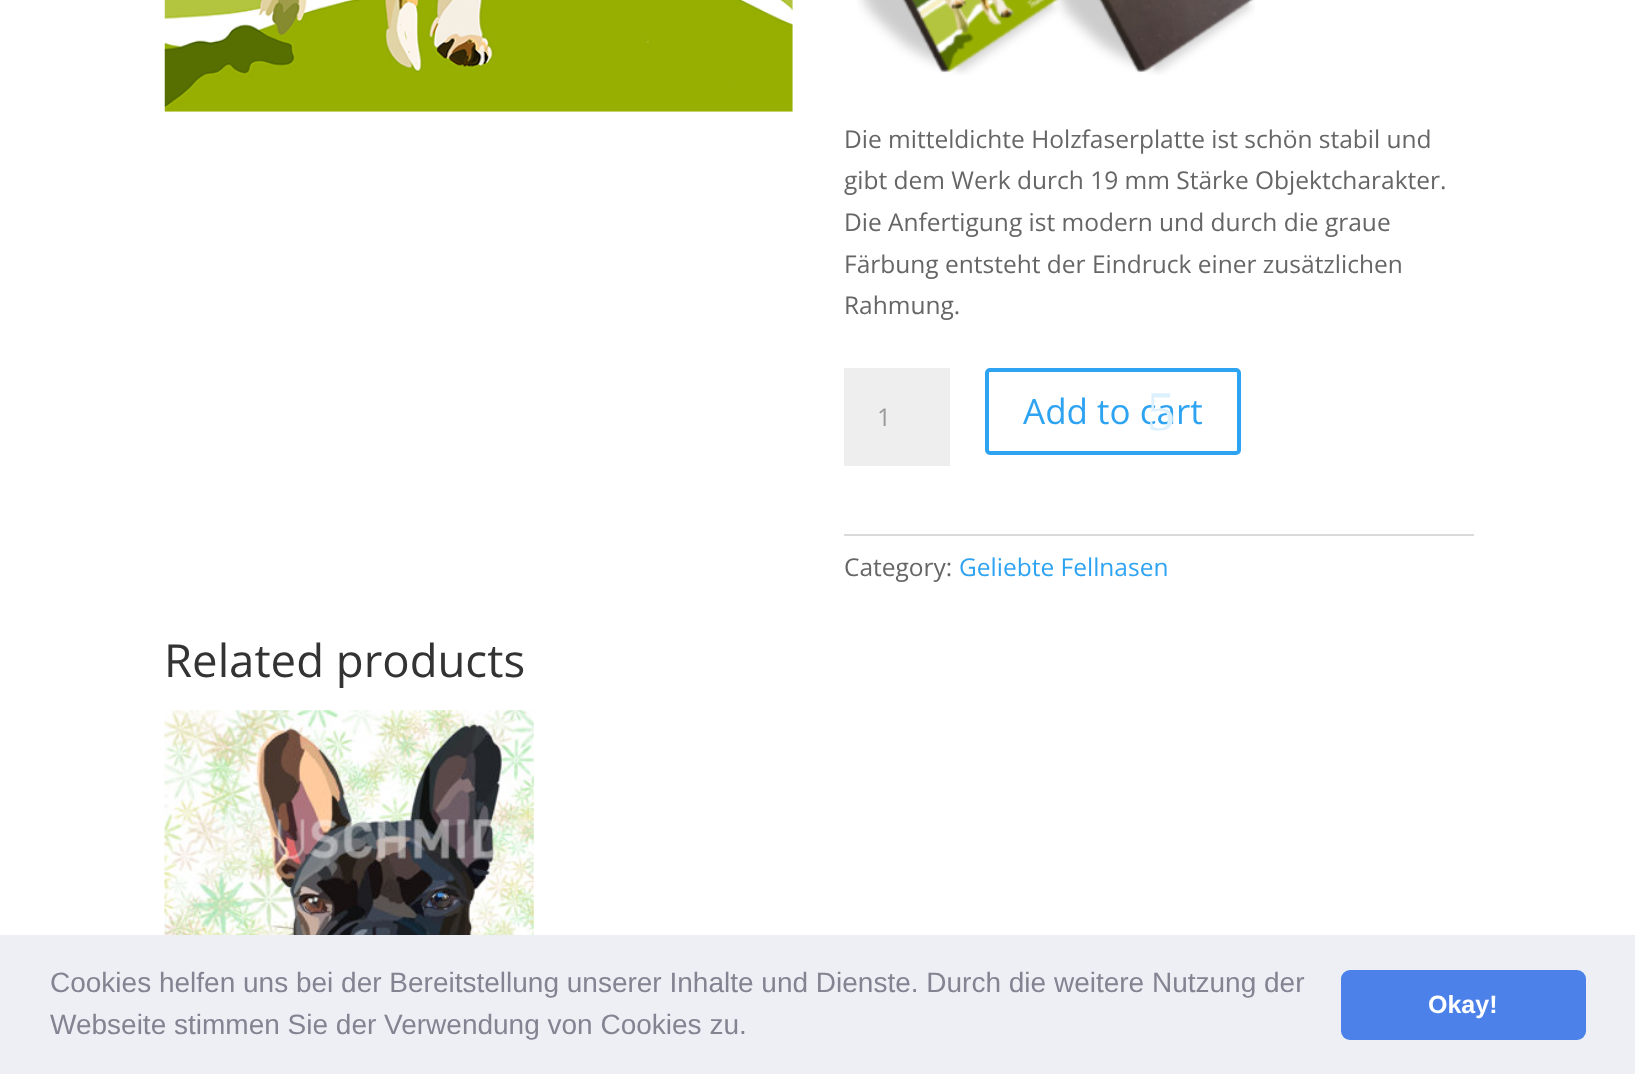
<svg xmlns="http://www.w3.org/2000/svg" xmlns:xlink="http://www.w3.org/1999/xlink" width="1635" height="1074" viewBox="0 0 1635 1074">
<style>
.cls-1{font:24.5px Open Sans;fill:#666666}
.cls-2{font:24.5px Open Sans;fill:#999999}
.cls-3{font:35px Open Sans;fill:#2ea3f2}
.cls-4{font:56px Liberation Serif;fill:#ddf0fd}
.cls-5{font:24.5px Open Sans;fill:#2ea3f2}
.cls-6{font:45.5px Open Sans;fill:#333333}
.cls-7{font:28px Liberation Sans;fill:#838391}
.cls-8{font:bold 25px Liberation Sans;fill:#ffffff}
</style>
<rect width="100%" height="100%" fill="#ffffff"/>
<image xlink:href="image0.png" x="164" y="0" width="629" height="112"/>
<image xlink:href="image1.png" x="857" y="0" width="398" height="75"/>
<rect fill="#eeeeee" x="844" y="368" width="106" height="98"/>
<rect fill="none" stroke="#2ea3f2" stroke-width="4" x="987" y="370" width="252" height="83" rx="3"/>
<rect fill="#dadada" x="844" y="534" width="630" height="2"/>
<image xlink:href="image2.png" x="164" y="710" width="370" height="225"/>
<rect fill="#edeff5" x="0" y="935" width="1635" height="139"/>
<rect fill="#4b81e8" x="1341" y="970" width="245" height="70" rx="9"/>
<text class="cls-1"><tspan x="844" y="148">Die mitteldichte Holzfaserplatte ist schön stabil und</tspan><tspan x="844" y="189">gibt dem Werk durch 19 mm Stärke Objektcharakter.</tspan><tspan x="844" y="231">Die Anfertigung ist modern und durch die graue</tspan><tspan x="844" y="273">Färbung entsteht der Eindruck einer zusätzlichen</tspan><tspan x="844" y="314">Rahmung.</tspan></text>
<text class="cls-2" x="877" y="426">1</text>
<text class="cls-3" x="1023" y="424">Add to cart</text>
<text class="cls-4" x="1147" y="430">5</text>
<text class="cls-1" x="844" y="576">Category:</text>
<text class="cls-5" x="959" y="576">Geliebte Fellnasen</text>
<text class="cls-6" x="164" y="677">Related products</text>
<text class="cls-7"><tspan x="50" y="992">Cookies helfen uns bei der Bereitstellung unserer Inhalte und Dienste. Durch die weitere Nutzung der</tspan><tspan x="50" y="1034">Webseite stimmen Sie der Verwendung von Cookies zu.</tspan></text>
<text class="cls-8" x="1428" y="1013">Okay!</text>
</svg>
